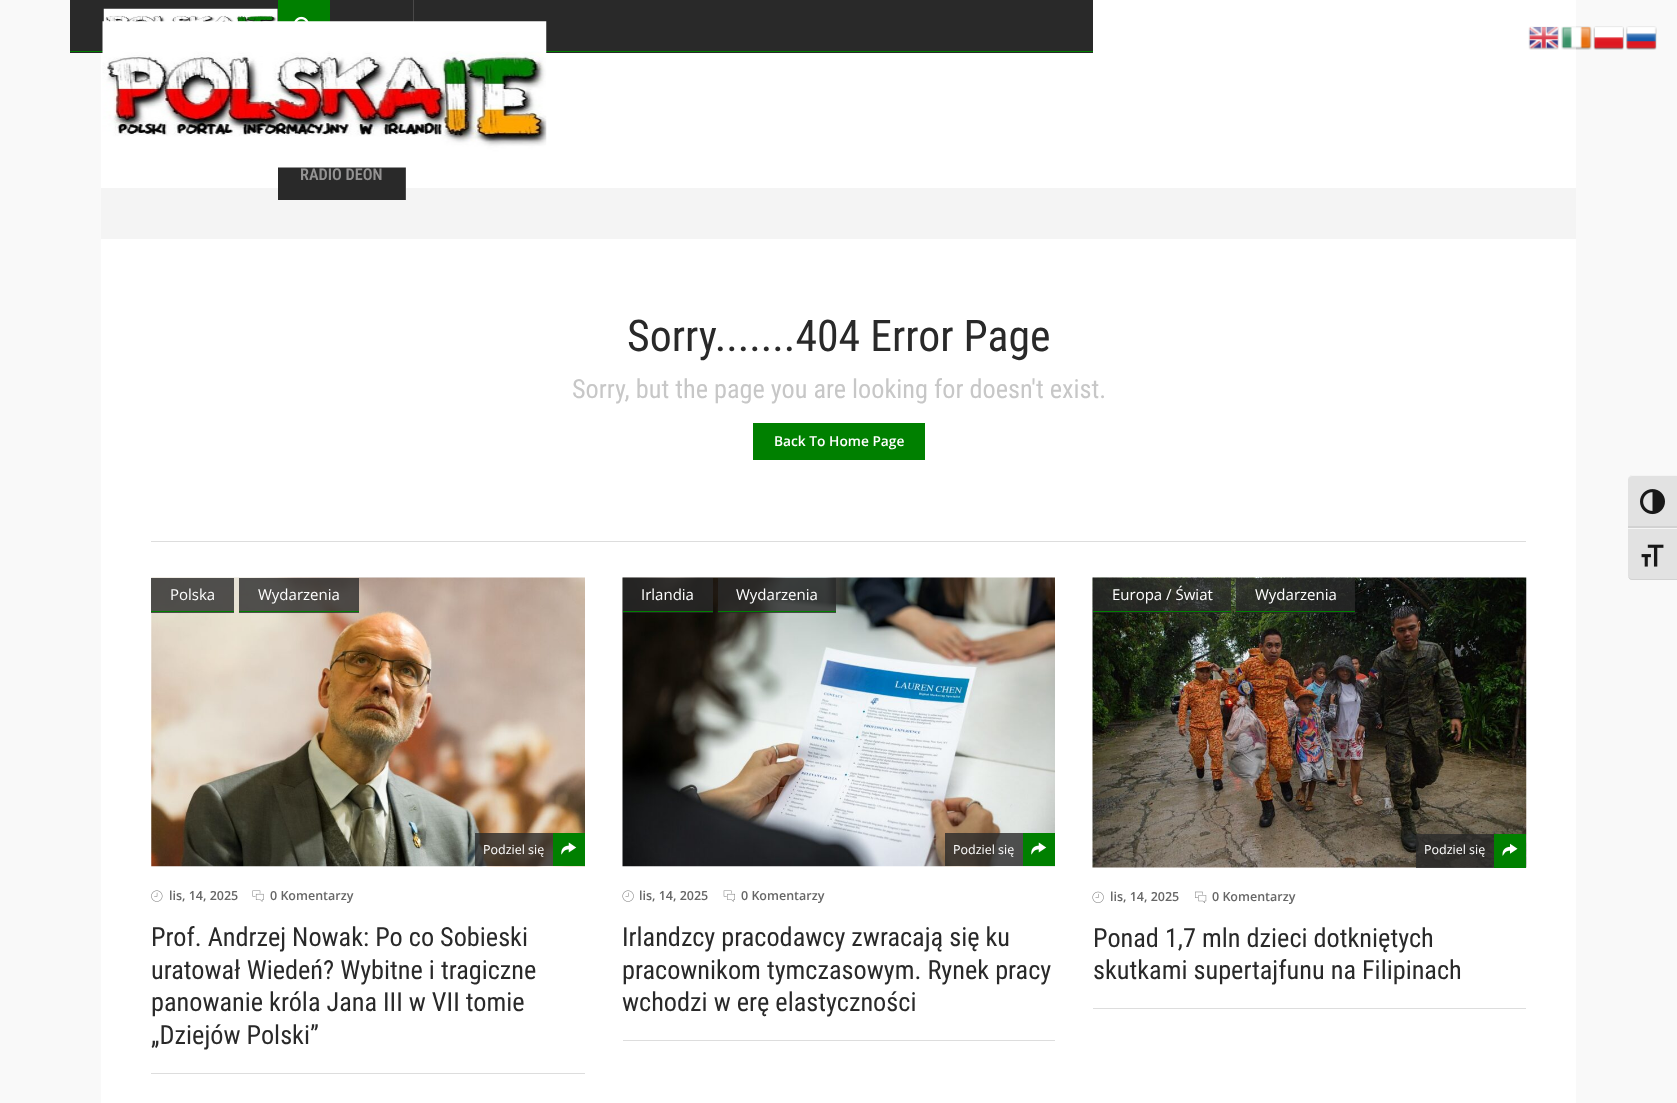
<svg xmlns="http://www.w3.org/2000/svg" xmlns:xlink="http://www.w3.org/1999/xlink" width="1677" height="1103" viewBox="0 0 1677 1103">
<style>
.cls-1{font:600 16.25px Roboto Condensed;fill:#949393}
.cls-2{font:43.75px Roboto Condensed;fill:#292929}
.cls-3{font:26.25px Roboto Condensed;fill:#c7c7c7}
.cls-4{font:600 13.75px Open Sans;fill:#ffffff}
.cls-5{font:15px Open Sans;fill:#ffffff}
.cls-6{font:12.5px Open Sans;fill:#ffffff}
.cls-7{font:600 12.5px Open Sans;fill:#666666}
.cls-8{font:26.25px Roboto Condensed;fill:#292929}
</style>
<rect width="100%" height="100%" fill="#f9f9f9"/>
<rect fill="#ffffff" x="101" y="0" width="1475" height="188"/>
<image xlink:href="image0.png" x="1528" y="26" width="31" height="24"/>
<image xlink:href="image7.png" x="1576" y="26" width="16" height="24"/>
<image xlink:href="image1.png" x="1561" y="26" width="31" height="24"/>
<image xlink:href="image8.png" x="1593" y="26" width="31" height="24"/>
<image xlink:href="image2.png" x="1593" y="26" width="31" height="24"/>
<image xlink:href="image9.png" x="1626" y="26" width="31" height="24"/>
<image xlink:href="image3.png" x="1626" y="26" width="31" height="24"/>
<rect fill="#f4f4f4" x="101" y="188" width="1475" height="51"/>
<rect fill="#292929" x="70" y="0" width="1023" height="53"/>
<rect fill="#008000" x="70" y="51" width="1023" height="1"/>
<image xlink:href="image5.png" x="103" y="8" width="175" height="14"/>
<rect fill="#008000" x="278" y="0" width="52" height="22"/>
<image xlink:href="image6.png" x="294" y="16" width="15" height="6"/>
<rect fill="#494848" x="413" y="0" width="1" height="22"/>
<rect fill="#292929" x="278" y="167" width="127" height="33"/>
<rect fill="#494848" x="405" y="167" width="1" height="33"/>
<image xlink:href="image4.png" x="102" y="21" width="445" height="147"/>
<rect fill="#ffffff" x="101" y="239" width="1475" height="864"/>
<rect fill="#008000" x="753" y="423" width="172" height="37"/>
<rect fill="#dddddd" x="151" y="541" width="1375" height="1"/>
<image xlink:href="image10.png" x="151" y="577" width="434" height="290"/>
<rect fill="#292929" fill-opacity="0.8" x="151" y="578" width="83" height="35"/>
<rect fill="#008000" x="151" y="611" width="83" height="1"/>
<rect fill="#292929" fill-opacity="0.8" x="239" y="578" width="120" height="35"/>
<rect fill="#008000" x="239" y="611" width="120" height="1"/>
<rect fill="#292929" fill-opacity="0.8" x="475" y="833" width="78" height="33"/>
<rect fill="#008000" x="553" y="833" width="32" height="33"/>
<image xlink:href="image11.png" x="561" y="842" width="16" height="13"/>
<image xlink:href="image12.png" x="151" y="890" width="12" height="12"/>
<image xlink:href="image13.png" x="252" y="890" width="12" height="12"/>
<rect fill="#dddddd" x="151" y="1073" width="434" height="1"/>
<image xlink:href="image14.png" x="622" y="577" width="433" height="290"/>
<rect fill="#292929" fill-opacity="0.8" x="623" y="578" width="90" height="35"/>
<rect fill="#008000" x="623" y="611" width="90" height="1"/>
<rect fill="#292929" fill-opacity="0.8" x="718" y="578" width="118" height="35"/>
<rect fill="#008000" x="718" y="611" width="118" height="1"/>
<rect fill="#292929" fill-opacity="0.8" x="945" y="833" width="78" height="33"/>
<rect fill="#008000" x="1023" y="833" width="32" height="33"/>
<image xlink:href="image11.png" x="1031" y="842" width="16" height="13"/>
<image xlink:href="image15.png" x="622" y="890" width="12" height="12"/>
<image xlink:href="image16.png" x="723" y="890" width="12" height="12"/>
<rect fill="#dddddd" x="623" y="1040" width="432" height="1"/>
<image xlink:href="image17.png" x="1092" y="577" width="435" height="291"/>
<rect fill="#292929" fill-opacity="0.8" x="1093" y="578" width="138" height="35"/>
<rect fill="#008000" x="1093" y="611" width="138" height="1"/>
<rect fill="#292929" fill-opacity="0.8" x="1236" y="578" width="119" height="35"/>
<rect fill="#008000" x="1236" y="611" width="119" height="1"/>
<rect fill="#292929" fill-opacity="0.8" x="1416" y="834" width="78" height="34"/>
<rect fill="#008000" x="1494" y="834" width="32" height="34"/>
<image xlink:href="image18.png" x="1502" y="843" width="16" height="13"/>
<image xlink:href="image19.png" x="1092" y="891" width="12" height="12"/>
<image xlink:href="image20.png" x="1195" y="891" width="12" height="12"/>
<rect fill="#dddddd" x="1093" y="1008" width="433" height="1"/>
<path fill="#e2e2e2" d="M1633 475H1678V528H1628V480C1628 477 1630 475 1633 475Z"/>
<path fill="#f5f5f5" d="M1632 475C1630 475 1628 477 1628 480C1628 478 1630 476 1632 476H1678V475Z"/>
<rect fill="#d2d2d2" x="1628" y="526" width="49" height="2"/>
<image xlink:href="image21.png" x="1640" y="489" width="25" height="26"/>
<path fill="#e2e2e2" d="M1628 528H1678V580H1633C1630 580 1628 578 1628 575Z"/>
<rect fill="#f5f5f5" x="1628" y="528" width="49" height="1"/>
<path fill="#d2d2d2" d="M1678 580H1632C1630 580 1628 578 1628 575C1628 577 1630 579 1632 579H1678Z"/>
<image xlink:href="image22.png" x="1641" y="544" width="23" height="23"/>
<text class="cls-1" x="300" y="180">RADIO DEON</text>
<text class="cls-2" x="627" y="351">Sorry.......404 Error Page</text>
<text class="cls-3" x="572" y="398">Sorry, but the page you are looking for doesn't exist.</text>
<text class="cls-4" x="774" y="446">Back To Home Page</text>
<text class="cls-5" x="170" y="600">Polska</text>
<text class="cls-5" x="258" y="600">Wydarzenia</text>
<text class="cls-6" x="483" y="854">Podziel się</text>
<text class="cls-7" x="169" y="900">lis, 14, 2025</text>
<text class="cls-7" x="270" y="900">0 Komentarzy</text>
<text class="cls-8"><tspan x="151" y="946">Prof. Andrzej Nowak: Po co Sobieski</tspan><tspan x="151" y="979">uratował Wiedeń? Wybitne i tragiczne</tspan><tspan x="151" y="1011">panowanie króla Jana III w VII tomie</tspan><tspan x="151" y="1044">„Dziejów Polski”</tspan></text>
<text class="cls-5" x="641" y="600">Irlandia</text>
<text class="cls-5" x="736" y="600">Wydarzenia</text>
<text class="cls-6" x="953" y="854">Podziel się</text>
<text class="cls-7" x="639" y="900">lis, 14, 2025</text>
<text class="cls-7" x="741" y="900">0 Komentarzy</text>
<text class="cls-8"><tspan x="622" y="946">Irlandzcy pracodawcy zwracają się ku</tspan><tspan x="622" y="979">pracownikom tymczasowym. Rynek pracy</tspan><tspan x="622" y="1011">wchodzi w erę elastyczności</tspan></text>
<text class="cls-5" x="1112" y="600">Europa / Świat</text>
<text class="cls-5" x="1255" y="600">Wydarzenia</text>
<text class="cls-6" x="1424" y="854">Podziel się</text>
<text class="cls-7" x="1110" y="901">lis, 14, 2025</text>
<text class="cls-7" x="1212" y="901">0 Komentarzy</text>
<text class="cls-8"><tspan x="1093" y="947">Ponad 1,7 mln dzieci dotkniętych</tspan><tspan x="1093" y="979">skutkami supertajfunu na Filipinach</tspan></text>
</svg>
